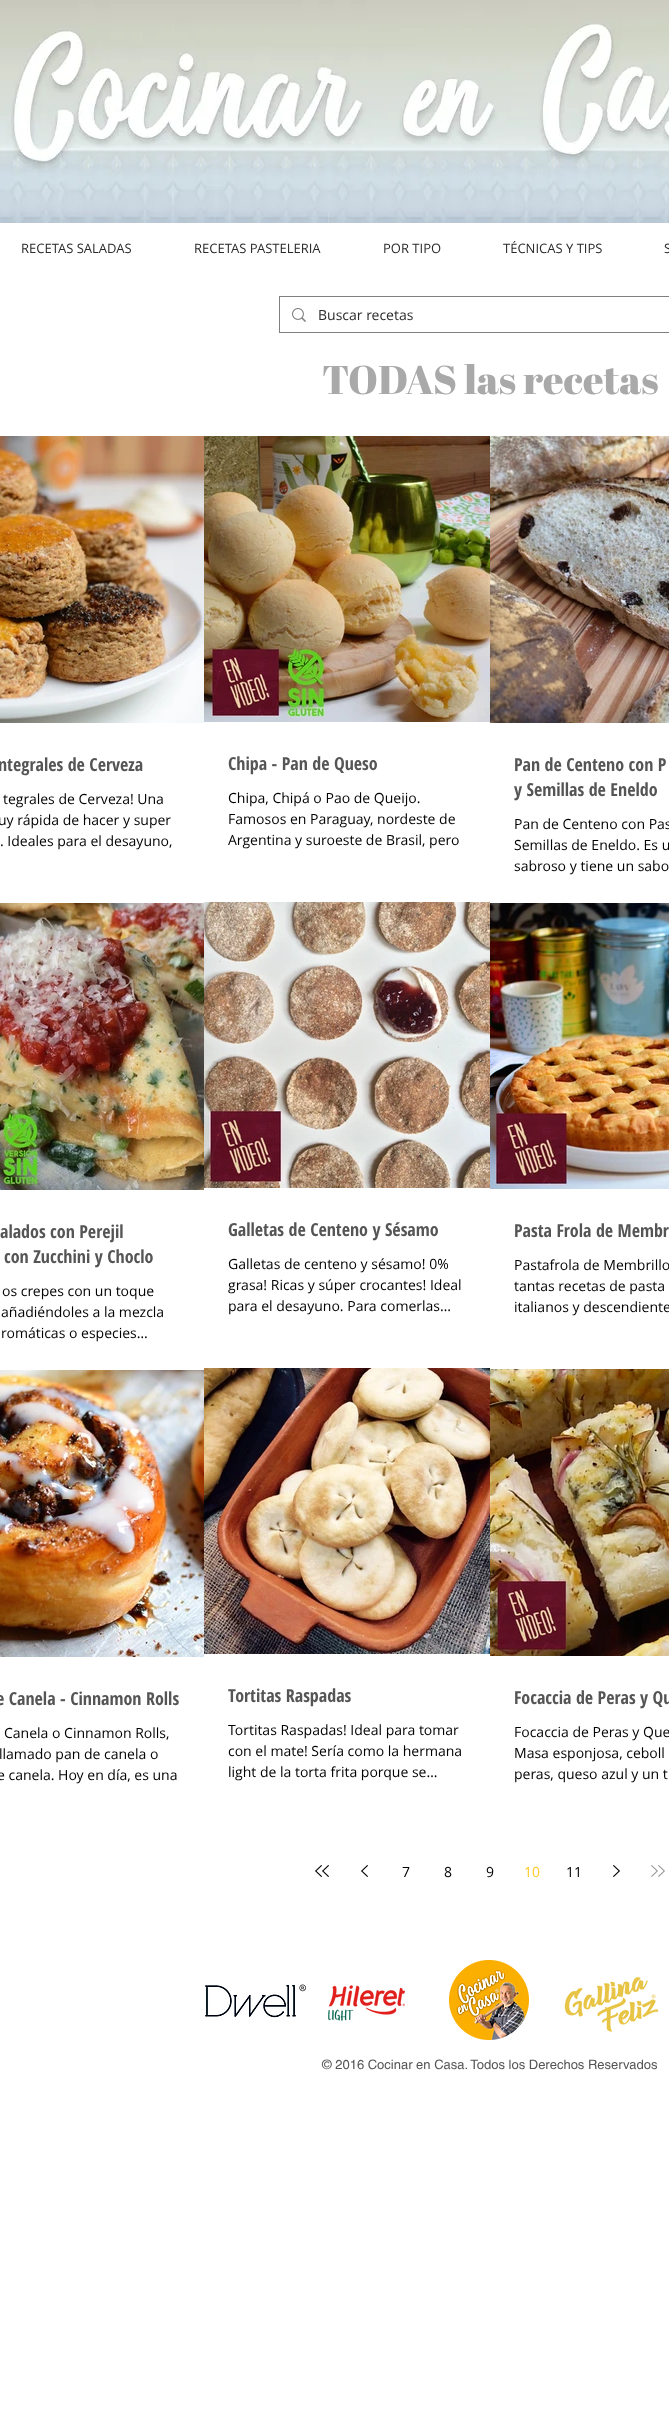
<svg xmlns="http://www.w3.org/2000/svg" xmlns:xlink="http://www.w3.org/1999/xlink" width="669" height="2426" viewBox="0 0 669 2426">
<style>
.cls-1{font:13px Open Sans;fill:#2a2a2a}
.cls-2{font:14px Open Sans;fill:#2a2a2a}
.cls-3{font:40px Abril Fatface;fill:#a9a9a9}
.cls-4{font:bold 18px Open Sans Condensed;fill:#555555}
.cls-5{font:14px Open Sans;fill:#000000}
.cls-6{font:14px Open Sans;fill:#ffc824}
.cls-7{font:13px helvetica;fill:#555555}
</style>
<rect width="100%" height="100%" fill="#ffffff"/>
<image xlink:href="image0.png" x="0" y="0" width="669" height="223"/>
<rect fill="none" stroke="#7f7f7f" x="279.5" y="296.5" width="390" height="36"/>
<image xlink:href="image1.png" x="292" y="308" width="14" height="14"/>
<image xlink:href="image2.png" x="0" y="436" width="204" height="287"/>
<image xlink:href="image3.png" x="204" y="436" width="286" height="286"/>
<image xlink:href="image4.png" x="490" y="436" width="179" height="287"/>
<image xlink:href="image5.png" x="0" y="903" width="204" height="287"/>
<image xlink:href="image6.png" x="204" y="902" width="286" height="286"/>
<image xlink:href="image7.png" x="490" y="903" width="179" height="286"/>
<image xlink:href="image8.png" x="0" y="1370" width="204" height="287"/>
<image xlink:href="image9.png" x="204" y="1368" width="286" height="286"/>
<image xlink:href="image10.png" x="490" y="1369" width="179" height="287"/>
<image xlink:href="image11.png" x="315" y="1865" width="7" height="12"/>
<image xlink:href="image11.png" x="322" y="1865" width="7" height="12"/>
<image xlink:href="image11.png" x="361" y="1865" width="7" height="12"/>
<image xlink:href="image12.png" x="613" y="1865" width="7" height="12"/>
<image xlink:href="image13.png" x="651" y="1865" width="7" height="12"/>
<image xlink:href="image13.png" x="658" y="1865" width="7" height="12"/>
<image xlink:href="image14.png" x="205" y="1984" width="102" height="34"/>
<image xlink:href="image15.png" x="328" y="1985" width="77" height="36"/>
<image xlink:href="image16.png" x="449" y="1960" width="80" height="80"/>
<image xlink:href="image17.png" x="564" y="1977" width="95" height="55"/>
<text class="cls-1" x="21" y="253">RECETAS SALADAS</text>
<text class="cls-1" x="194" y="253">RECETAS PASTELERIA</text>
<text class="cls-1" x="383" y="253">POR TIPO</text>
<text class="cls-1" x="503" y="253">TÉCNICAS Y TIPS</text>
<text class="cls-1" x="664" y="253">S</text>
<text class="cls-2" x="318" y="320">Buscar recetas</text>
<text class="cls-3" x="322" y="394">TODAS las recetas</text>
<text class="cls-4" x="-2" y="771">ntegrales de Cerveza</text>
<text class="cls-5" x="3" y="804">tegrales de Cerveza! Una</text>
<text class="cls-5" x="-2" y="825">uy rápida de hacer y super</text>
<text class="cls-5" x="0" y="846">. Ideales para el desayuno,</text>
<text class="cls-4" x="228" y="770">Chipa - Pan de Queso</text>
<text class="cls-5"><tspan x="228" y="803">Chipa, Chipá o Pao de Queijo.</tspan><tspan x="228" y="824">Famosos en Paraguay, nordeste de</tspan><tspan x="228" y="845">Argentina y suroeste de Brasil, pero</tspan></text>
<text class="cls-4"><tspan x="514" y="771">Pan de Centeno con P</tspan><tspan x="514" y="796">y Semillas de Eneldo</tspan></text>
<text class="cls-5"><tspan x="514" y="829">Pan de Centeno con Pas</tspan><tspan x="514" y="850">Semillas de Eneldo. Es u</tspan><tspan x="514" y="871">sabroso y tiene un sabo</tspan></text>
<text class="cls-4" x="0" y="1238">alados con Perejil</text>
<text class="cls-4" x="4" y="1263">con Zucchini y Choclo</text>
<text class="cls-5" x="2" y="1296">os crepes con un toque</text>
<text class="cls-5"><tspan x="1" y="1317">añadiéndoles a la mezcla</tspan><tspan x="1" y="1338">romáticas o especies…</tspan></text>
<text class="cls-4" x="228" y="1236">Galletas de Centeno y Sésamo</text>
<text class="cls-5"><tspan x="228" y="1269">Galletas de centeno y sésamo! 0%</tspan><tspan x="228" y="1290">grasa! Ricas y súper crocantes! Ideal</tspan><tspan x="228" y="1311">para el desayuno. Para comerlas…</tspan></text>
<text class="cls-4" x="514" y="1237">Pasta Frola de Membr</text>
<text class="cls-5"><tspan x="514" y="1270">Pastafrola de Membrillo</tspan><tspan x="514" y="1291">tantas recetas de pasta</tspan><tspan x="514" y="1312">italianos y descendiente</tspan></text>
<text class="cls-4" x="-4" y="1705">e Canela - Cinnamon Rolls</text>
<text class="cls-5" x="4" y="1738">Canela o Cinnamon Rolls,</text>
<text class="cls-5" x="-1" y="1759">llamado pan de canela o</text>
<text class="cls-5" x="-3" y="1780">e canela. Hoy en día, es una</text>
<text class="cls-4" x="228" y="1702">Tortitas Raspadas</text>
<text class="cls-5"><tspan x="228" y="1735">Tortitas Raspadas! Ideal para tomar</tspan><tspan x="228" y="1756">con el mate! Sería como la hermana</tspan><tspan x="228" y="1777">light de la torta frita porque se…</tspan></text>
<text class="cls-4" x="514" y="1704">Focaccia de Peras y Qu</text>
<text class="cls-5"><tspan x="514" y="1737">Focaccia de Peras y Que</tspan><tspan x="514" y="1758">Masa esponjosa, ceboll</tspan><tspan x="514" y="1779">peras, queso azul y un t</tspan></text>
<text class="cls-5" x="402" y="1877">7</text>
<text class="cls-5" x="444" y="1877">8</text>
<text class="cls-5" x="486" y="1877">9</text>
<text class="cls-6" x="524" y="1877">10</text>
<text class="cls-5" x="566" y="1877">11</text>
<text class="cls-7" x="322" y="2069">© 2016 Cocinar en Casa. Todos los Derechos Reservados</text>
</svg>
